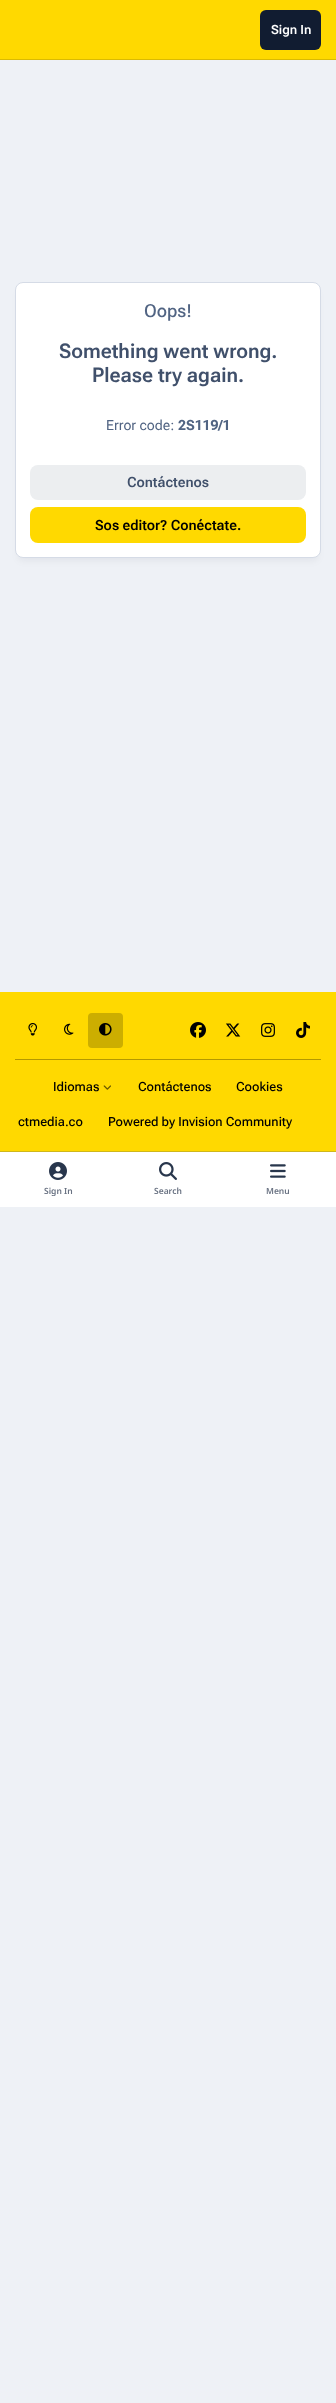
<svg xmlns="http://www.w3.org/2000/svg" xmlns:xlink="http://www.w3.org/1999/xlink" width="336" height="2403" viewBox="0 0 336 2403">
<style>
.cls-1{font:600 12.6px 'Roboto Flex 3';fill:#ffffff}
.cls-2{font:500 18px Roboto Flex;fill:#516483}
.cls-3{font:600 20.25px Roboto Flex;fill:#40506b}
.cls-4{font:14px Roboto Flex;fill:#516483}
.cls-5{font:bold 14px Roboto Flex;fill:#516483}
.cls-6{font:600 14px 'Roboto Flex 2';fill:#40506b}
.cls-7{font:600 14px 'Roboto Flex 2';fill:#000000}
.cls-8{font:500 12.6px 'Roboto Flex 2';fill:#000000}
.cls-9{font:600 8.5px Noto Sans;fill:#697282}
</style>
<rect width="100%" height="100%" fill="#eef1f6"/>
<rect fill="#ffd900" x="0" y="0" width="336" height="59"/>
<rect fill="#daba03" x="0" y="59" width="336" height="1"/>
<rect fill="#111c31" x="260" y="10" width="61" height="40" rx="6"/>
<rect fill="#01030a" fill-opacity="0.05" filter="blur(3.5px)" x="18" y="291" width="300" height="270" rx="5"/>
<rect fill="#ffffff" stroke="#d5dbe6" x="15.5" y="282.5" width="305" height="275" rx="7.5"/>
<rect fill="#eceef0" x="30" y="465" width="276" height="35" rx="8"/>
<rect fill="#ffd900" x="30" y="507" width="276" height="36" rx="8"/>
<rect fill="#ffd900" x="0" y="992" width="336" height="159"/>
<image xlink:href="image0.png" x="28" y="1023" width="9" height="13"/>
<image xlink:href="image1.png" x="64" y="1023" width="10" height="12"/>
<rect fill="#ccae00" x="88" y="1013" width="35" height="35" rx="4"/>
<image xlink:href="image2.png" x="99" y="1023" width="13" height="13"/>
<image xlink:href="image3.png" x="190" y="1022" width="16" height="16"/>
<image xlink:href="image4.png" x="226" y="1023" width="15" height="14"/>
<image xlink:href="image5.png" x="261" y="1023" width="14" height="14"/>
<image xlink:href="image6.png" x="296" y="1022" width="14" height="16"/>
<rect fill="#b39800" x="15" y="1059" width="306" height="1"/>
<image xlink:href="image7.png" x="103" y="1085" width="8" height="5"/>
<rect fill="#cfb71b" x="0" y="1151" width="336" height="1"/>
<rect fill="#ffffff" x="0" y="1152" width="336" height="55"/>
<image xlink:href="image8.png" x="49" y="1162" width="18" height="18"/>
<image xlink:href="image9.png" x="159" y="1162" width="18" height="18"/>
<image xlink:href="image10.png" x="270" y="1164" width="16" height="14"/>
<text class="cls-1" x="271" y="34">Sign In</text>
<text class="cls-2" x="144" y="317">Oops!</text>
<text class="cls-3" x="59" y="358">Something went wrong.</text>
<text class="cls-3" x="92" y="382">Please try again.</text>
<text class="cls-4" x="106" y="430">Error code:</text>
<text class="cls-5" x="178" y="430">2S119/1</text>
<text class="cls-6" x="127" y="487">Contáctenos</text>
<text class="cls-7" x="95" y="530">Sos editor? Conéctate.</text>
<text class="cls-8" x="53" y="1091">Idiomas</text>
<text class="cls-8" x="138" y="1091">Contáctenos</text>
<text class="cls-8" x="236" y="1091">Cookies</text>
<text class="cls-8" x="18" y="1126">ctmedia.co</text>
<text class="cls-8" x="108" y="1126">Powered by Invision Community</text>
<text class="cls-9" x="44" y="1194">Sign In</text>
<text class="cls-9" x="154" y="1194">Search</text>
<text class="cls-9" x="266" y="1194">Menu</text>
</svg>
